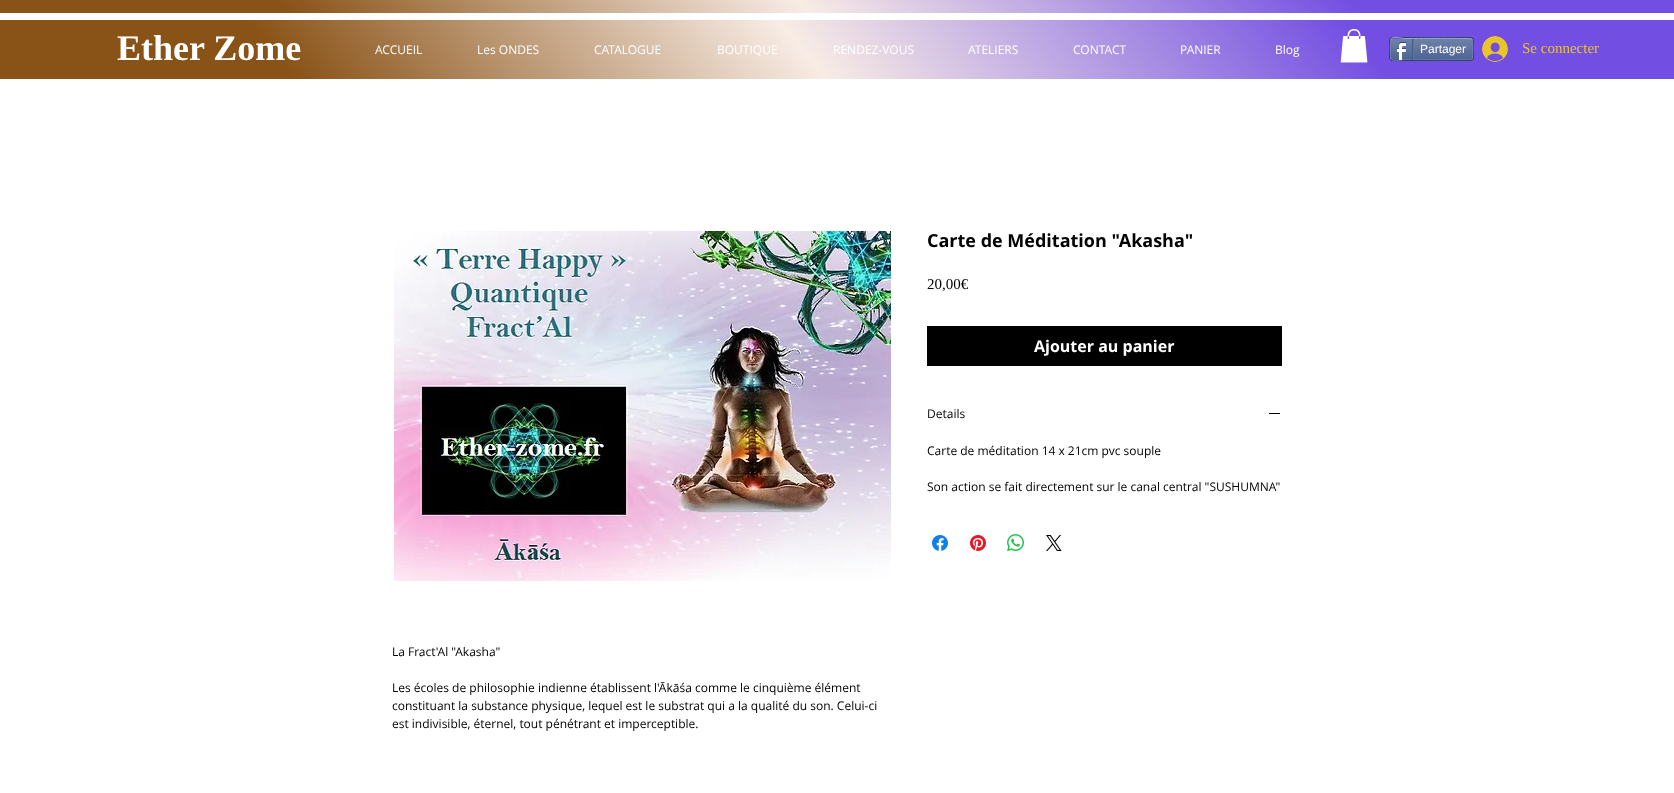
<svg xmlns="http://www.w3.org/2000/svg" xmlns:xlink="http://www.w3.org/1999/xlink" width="1674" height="793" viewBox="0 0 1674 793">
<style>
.cls-1{font:bold 36px Liberation Serif;fill:#ffffff}
.cls-2{font:12px Open Sans;fill:#ffffff}
.cls-3{font:12px Liberation Sans;fill:#ffffff}
.cls-4{font:15px Liberation Serif;fill:#e8c529}
.cls-5{font:bold 18px Open Sans;fill:#000000}
.cls-6{font:15px Liberation Serif;fill:#000000}
.cls-7{font:bold 16px Open Sans;fill:#ffffff}
.cls-8{font:12px Open Sans;fill:#000000}
</style>
<defs>
<linearGradient id="g1" gradientUnits="userSpaceOnUse" x1="335" y1="420" x2="1339" y2="-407"><stop offset="0.17" stop-color="#895216"/><stop offset="0.48" stop-color="#f8ece5"/><stop offset="0.81" stop-color="#724ee2"/></linearGradient>
<linearGradient id="g2" gradientUnits="userSpaceOnUse" x1="324" y1="472" x2="1350" y2="-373"><stop offset="0.17" stop-color="#895216"/><stop offset="0.48" stop-color="#f8ece5"/><stop offset="0.81" stop-color="#724ee2"/></linearGradient>
</defs>
<rect width="100%" height="100%" fill="#ffffff"/>
<rect fill="url(#g1)" x="0" y="0" width="1674" height="13"/>
<rect fill="url(#g2)" x="0" y="20" width="1674" height="59"/>
<image xlink:href="image0.png" x="1340" y="29" width="28" height="34"/>
<rect fill="none" stroke="#2d4565" x="1389.5" y="37.5" width="84" height="23" rx="2.5"/>
<image xlink:href="image1.png" x="1390" y="39" width="83" height="21"/>
<path fill="none" stroke="#9aabc6" d="M1391 39C1394.5 35.5 1400.5 38.5 1405 38.5C1412 38.5 1471 38 1472 39"/>
<path fill="none" stroke="#6f83ad" d="M1472 39C1473 39.5 1473 58.5 1472 59"/>
<path fill="none" stroke="#6176a3" d="M1472 59C1471 60 1412 59.5 1405 59.5C1400.5 59.5 1394.5 62.5 1391 59"/>
<path fill="none" stroke="#6f83ad" d="M1391 59C1390 58.5 1390 39.5 1391 39"/>
<image xlink:href="image2.png" x="1396" y="42" width="10" height="18"/>
<rect fill="#425e85" x="1412" y="39" width="1" height="21"/>
<rect fill="#6176a3" x="1413" y="39" width="1" height="20"/>
<image xlink:href="image3.png" x="1482" y="36" width="26" height="26"/>
<rect fill="#000000" x="927" y="326" width="355" height="40"/>
<rect fill="#000000" x="1269" y="413" width="11" height="1"/>
<image xlink:href="image4.png" x="932" y="535" width="16" height="16"/>
<image xlink:href="image5.png" x="970" y="535" width="16" height="16"/>
<image xlink:href="image6.png" x="1007" y="534" width="17" height="17"/>
<image xlink:href="image7.png" x="1046" y="535" width="16" height="16"/>
<image xlink:href="image8.png" x="394" y="231" width="497" height="350"/>
<text class="cls-1" x="117" y="60">Ether Zome</text>
<text class="cls-2" x="375" y="54">ACCUEIL</text>
<text class="cls-2" x="477" y="54">Les ONDES</text>
<text class="cls-2" x="594" y="54">CATALOGUE</text>
<text class="cls-2" x="717" y="54">BOUTIQUE</text>
<text class="cls-2" x="833" y="54">RENDEZ-VOUS</text>
<text class="cls-2" x="968" y="54">ATELIERS</text>
<text class="cls-2" x="1073" y="54">CONTACT</text>
<text class="cls-2" x="1180" y="54">PANIER</text>
<text class="cls-2" x="1275" y="54">Blog</text>
<text class="cls-3" x="1420" y="53">Partager</text>
<text class="cls-4" x="1522" y="53">Se connecter</text>
<text class="cls-5" x="927" y="247">Carte de Méditation "Akasha"</text>
<text class="cls-6" x="927" y="289">20,00€</text>
<text class="cls-7" x="1034" y="352">Ajouter au panier</text>
<text class="cls-8" x="927" y="418">Details</text>
<text class="cls-8" x="927" y="455">Carte de méditation 14 x 21cm pvc souple</text>
<text class="cls-8" x="927" y="491">Son action se fait directement sur le canal central "SUSHUMNA"</text>
<text class="cls-8" x="392" y="656">La Fract'Al "Akasha"</text>
<text class="cls-8"><tspan x="392" y="692">Les écoles de philosophie indienne établissent l'Ākāśa comme le cinquième élément</tspan><tspan x="392" y="710">constituant la substance physique, lequel est le substrat qui a la qualité du son. Celui-ci</tspan><tspan x="392" y="728">est indivisible, éternel, tout pénétrant et imperceptible.</tspan></text>
</svg>
